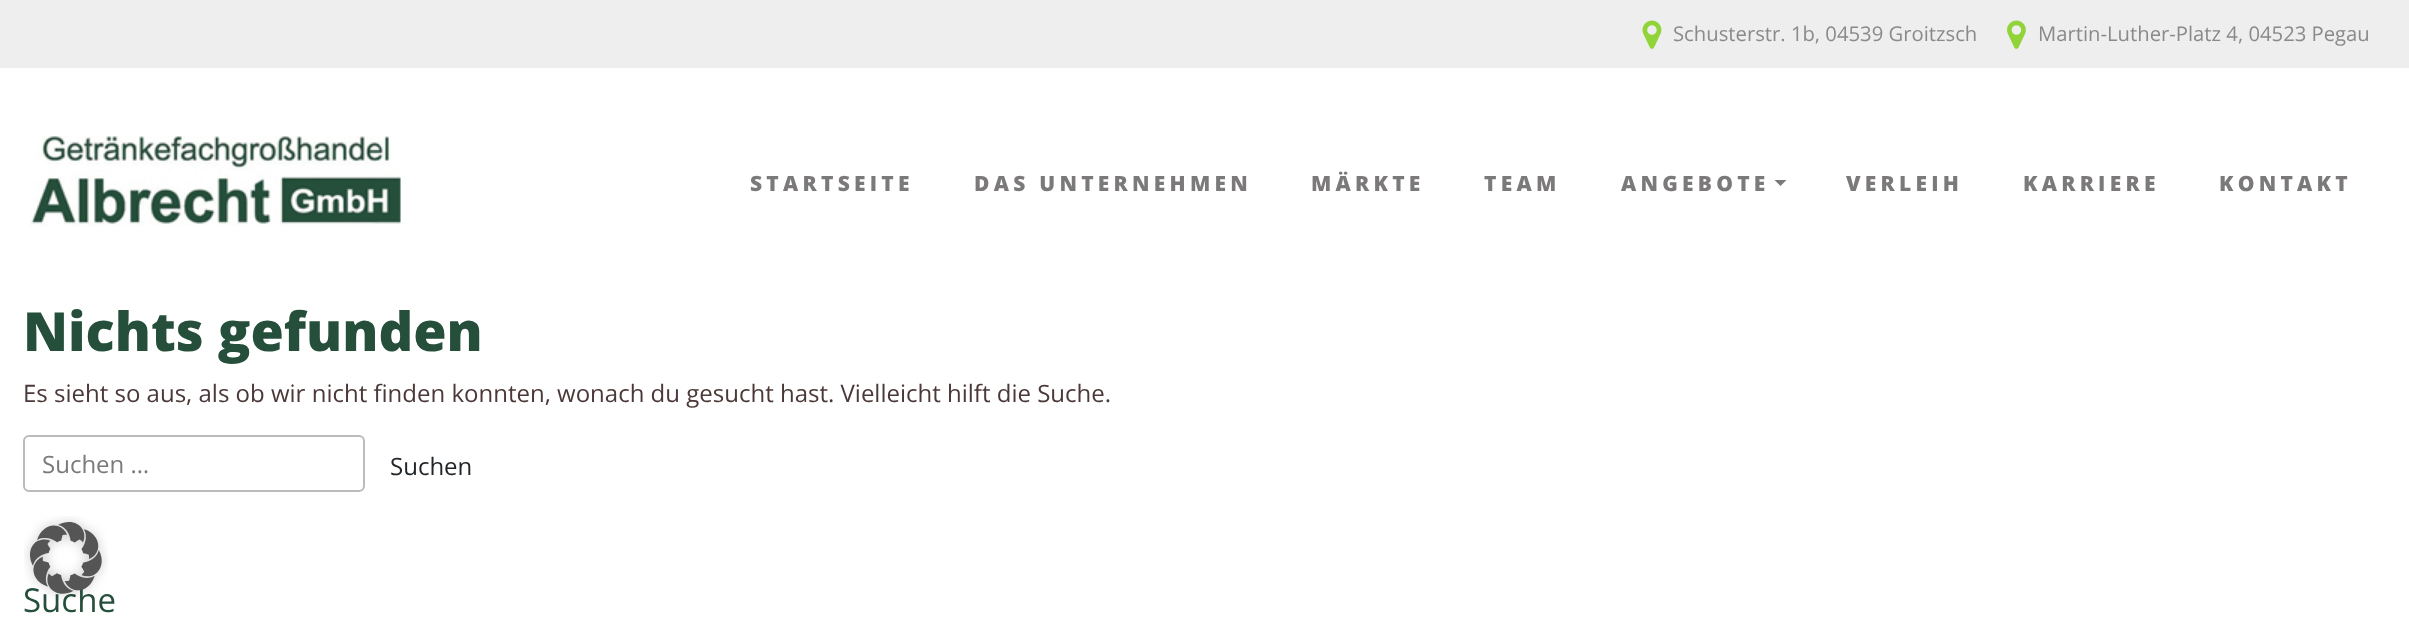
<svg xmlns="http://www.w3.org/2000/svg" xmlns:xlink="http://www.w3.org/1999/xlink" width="2409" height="623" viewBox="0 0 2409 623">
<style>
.cls-1{font:20.25px Open Sans;fill:#8a8a8a}
.cls-2{font:800 21px Open Sans;letter-spacing:4.25px;fill:#7b797a}
.cls-3{font:800 54px Open Sans;fill:#254f3b}
.cls-4{font:24px Open Sans;fill:#4b3838}
.cls-5{font:24px Open Sans;fill:#7b797a}
.cls-6{font:24px Open Sans;fill:#212529}
.cls-7{font:33px Open Sans;fill:#254f3b}
</style>
<rect width="100%" height="100%" fill="#ffffff"/>
<rect fill="#eeeeee" x="0" y="0" width="2409" height="68"/>
<image xlink:href="image0.png" x="1642" y="20" width="20" height="29"/>
<image xlink:href="image1.png" x="2007" y="20" width="19" height="29"/>
<image xlink:href="image2.png" x="30" y="136" width="371" height="90"/>
<path fill="#7b797a" d="M1774.5 180H1786.5L1780.5 186Z"/>
<rect fill="none" stroke="#bbbbbb" stroke-width="2" x="24" y="436" width="340" height="55" rx="5"/>
<text class="cls-1" x="1673" y="41">Schusterstr. 1b, 04539 Groitzsch</text>
<text class="cls-1" x="2038" y="41">Martin-Luther-Platz 4, 04523 Pegau</text>
<text class="cls-2" x="750" y="191">STARTSEITE</text>
<text class="cls-2" x="974" y="191">DAS UNTERNEHMEN</text>
<text class="cls-2" x="1311" y="191">MÄRKTE</text>
<text class="cls-2" x="1484" y="191">TEAM</text>
<text class="cls-2" x="1621" y="191">ANGEBOTE</text>
<text class="cls-2" x="1846" y="191">VERLEIH</text>
<text class="cls-2" x="2023" y="191">KARRIERE</text>
<text class="cls-2" x="2219" y="191">KONTAKT</text>
<text class="cls-3" x="23" y="351">Nichts gefunden</text>
<text class="cls-4" x="23" y="402">Es sieht so aus, als ob wir nicht finden konnten, wonach du gesucht hast. Vielleicht hilft die Suche.</text>
<text class="cls-5" x="42" y="473">Suchen …</text>
<text class="cls-6" x="390" y="475">Suchen</text>
<text class="cls-7" x="23" y="612">Suche</text>
<image xlink:href="image3.png" x="24" y="516" width="84" height="84"/>
</svg>
